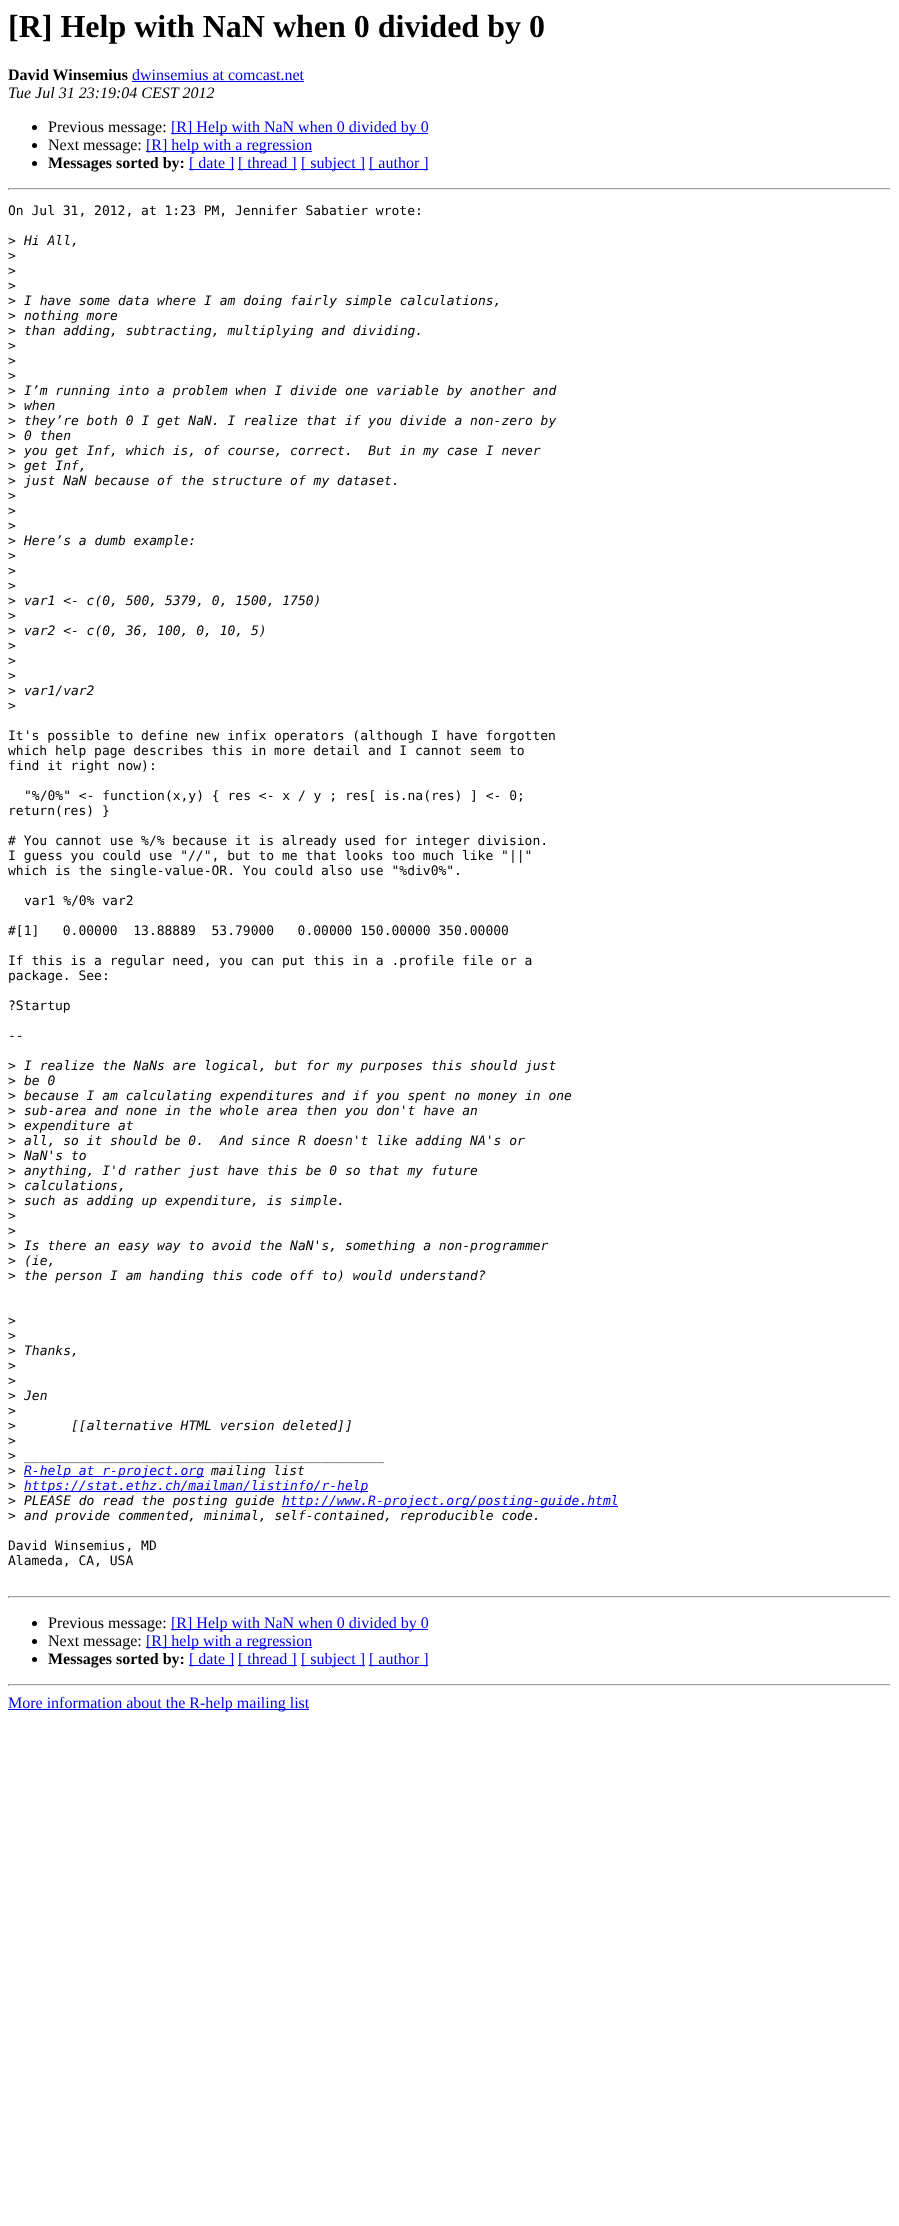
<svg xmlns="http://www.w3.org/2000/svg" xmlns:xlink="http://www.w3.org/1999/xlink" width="899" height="2226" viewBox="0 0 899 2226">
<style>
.cls-1{font:bold 32px Liberation Serif;fill:#000000}
.cls-2{font:bold 16px Liberation Serif;fill:#000000}
.cls-3{font:16px Liberation Serif;fill:#0000ee}
.cls-4{font:italic 16px Liberation Serif;fill:#000000}
.cls-5{font:16px Liberation Serif;fill:#000000}
.cls-6{font:13px DejaVu Sans Mono;fill:#000000}
.cls-7{font:italic 13px DejaVu Sans Mono;fill:#000000}
.cls-8{font:italic 13px DejaVu Sans Mono;fill:#0000ee}
</style>
<rect width="100%" height="100%" fill="#ffffff"/>
<rect fill="#0000ee" x="132" y="81" width="172" height="1"/>
<circle fill="#000000" cx="34.5" cy="127.5" r="2.5"/>
<rect fill="#0000ee" x="171" y="133" width="257" height="1"/>
<circle fill="#000000" cx="34.5" cy="145.5" r="2.5"/>
<rect fill="#0000ee" x="146" y="151" width="166" height="1"/>
<circle fill="#000000" cx="34.5" cy="163.5" r="2.5"/>
<rect fill="#0000ee" x="189" y="169" width="45" height="1"/>
<rect fill="#0000ee" x="238" y="169" width="59" height="1"/>
<rect fill="#0000ee" x="301" y="169" width="64" height="1"/>
<rect fill="#0000ee" x="369" y="169" width="59" height="1"/>
<rect fill="#9f9f9f" x="8" y="188" width="883" height="1"/>
<rect fill="#eeeeee" x="890" y="188" width="1" height="2"/>
<rect fill="#eeeeee" x="8" y="189" width="883" height="1"/>
<rect fill="#9f9f9f" x="8" y="188" width="1" height="2"/>
<rect fill="#0000ee" x="24" y="1476" width="180" height="1"/>
<rect fill="#0000ee" x="24" y="1491" width="344" height="1"/>
<rect fill="#0000ee" x="282" y="1506" width="336" height="1"/>
<rect fill="#9f9f9f" x="8" y="1596" width="883" height="1"/>
<rect fill="#eeeeee" x="890" y="1596" width="1" height="2"/>
<rect fill="#eeeeee" x="8" y="1597" width="883" height="1"/>
<rect fill="#9f9f9f" x="8" y="1596" width="1" height="2"/>
<circle fill="#000000" cx="34.5" cy="1623.5" r="2.5"/>
<rect fill="#0000ee" x="171" y="1629" width="257" height="1"/>
<circle fill="#000000" cx="34.5" cy="1641.5" r="2.5"/>
<rect fill="#0000ee" x="146" y="1647" width="166" height="1"/>
<circle fill="#000000" cx="34.5" cy="1659.5" r="2.5"/>
<rect fill="#0000ee" x="189" y="1665" width="45" height="1"/>
<rect fill="#0000ee" x="238" y="1665" width="59" height="1"/>
<rect fill="#0000ee" x="301" y="1665" width="64" height="1"/>
<rect fill="#0000ee" x="369" y="1665" width="59" height="1"/>
<rect fill="#9f9f9f" x="8" y="1684" width="883" height="1"/>
<rect fill="#eeeeee" x="890" y="1684" width="1" height="2"/>
<rect fill="#eeeeee" x="8" y="1685" width="883" height="1"/>
<rect fill="#9f9f9f" x="8" y="1684" width="1" height="2"/>
<rect fill="#0000ee" x="8" y="1709" width="301" height="1"/>
<text class="cls-1" x="8" y="37">[R] Help with NaN when 0 divided by 0</text>
<text class="cls-2" x="8" y="80">David Winsemius</text>
<text class="cls-3" x="132" y="80">dwinsemius at comcast.net</text>
<text class="cls-4" x="8" y="98">Tue Jul 31 23:19:04 CEST 2012</text>
<text class="cls-5" x="48" y="132">Previous message:</text>
<text class="cls-3" x="171" y="132">[R] Help with NaN when 0 divided by 0</text>
<text class="cls-5" x="48" y="150">Next message:</text>
<text class="cls-3" x="146" y="150">[R] help with a regression</text>
<text class="cls-2" x="48" y="168">Messages sorted by:</text>
<text class="cls-3" x="189" y="168">[ date ]</text>
<text class="cls-3" x="238" y="168">[ thread ]</text>
<text class="cls-3" x="301" y="168">[ subject ]</text>
<text class="cls-3" x="369" y="168">[ author ]</text>
<text class="cls-6" x="8" y="215">On Jul 31, 2012, at 1:23 PM, Jennifer Sabatier wrote:</text>
<text class="cls-6" x="8" y="245">&gt;</text>
<text class="cls-7" x="24" y="245">Hi All,</text>
<text class="cls-6"><tspan x="8" y="260">&gt;</tspan><tspan x="8" y="275">&gt;</tspan><tspan x="8" y="290">&gt;</tspan><tspan x="8" y="305">&gt;</tspan></text>
<text class="cls-7" x="24" y="305">I have some data where I am doing fairly simple calculations,</text>
<text class="cls-6" x="8" y="320">&gt;</text>
<text class="cls-7" x="24" y="320">nothing more</text>
<text class="cls-6" x="8" y="335">&gt;</text>
<text class="cls-7" x="24" y="335">than adding, subtracting, multiplying and dividing.</text>
<text class="cls-6"><tspan x="8" y="350">&gt;</tspan><tspan x="8" y="365">&gt;</tspan><tspan x="8" y="380">&gt;</tspan><tspan x="8" y="395">&gt;</tspan></text>
<text class="cls-7" x="24" y="395">I’m running into a problem when I divide one variable by another and</text>
<text class="cls-6" x="8" y="410">&gt;</text>
<text class="cls-7" x="24" y="410">when</text>
<text class="cls-6" x="8" y="425">&gt;</text>
<text class="cls-7" x="24" y="425">they’re both 0 I get NaN. I realize that if you divide a non-zero by</text>
<text class="cls-6" x="8" y="440">&gt;</text>
<text class="cls-7" x="24" y="440">0 then</text>
<text class="cls-6" x="8" y="455">&gt;</text>
<text class="cls-7" xml:space="preserve" x="24" y="455">you get Inf, which is, of course, correct.  But in my case I never</text>
<text class="cls-6" x="8" y="470">&gt;</text>
<text class="cls-7" x="24" y="470">get Inf,</text>
<text class="cls-6" x="8" y="485">&gt;</text>
<text class="cls-7" x="24" y="485">just NaN because of the structure of my dataset.</text>
<text class="cls-6"><tspan x="8" y="500">&gt;</tspan><tspan x="8" y="515">&gt;</tspan><tspan x="8" y="530">&gt;</tspan><tspan x="8" y="545">&gt;</tspan></text>
<text class="cls-7" x="24" y="545">Here’s a dumb example:</text>
<text class="cls-6"><tspan x="8" y="560">&gt;</tspan><tspan x="8" y="575">&gt;</tspan><tspan x="8" y="590">&gt;</tspan><tspan x="8" y="605">&gt;</tspan></text>
<text class="cls-7" x="24" y="605">var1 &lt;- c(0, 500, 5379, 0, 1500, 1750)</text>
<text class="cls-6"><tspan x="8" y="620">&gt;</tspan><tspan x="8" y="635">&gt;</tspan></text>
<text class="cls-7" x="24" y="635">var2 &lt;- c(0, 36, 100, 0, 10, 5)</text>
<text class="cls-6"><tspan x="8" y="650">&gt;</tspan><tspan x="8" y="665">&gt;</tspan><tspan x="8" y="680">&gt;</tspan><tspan x="8" y="695">&gt;</tspan></text>
<text class="cls-7" x="24" y="695">var1/var2</text>
<text class="cls-6" x="8" y="710">&gt;</text>
<text class="cls-6"><tspan x="8" y="740">It's possible to define new infix operators (although I have forgotten</tspan><tspan x="8" y="755">which help page describes this in more detail and I cannot seem to</tspan><tspan x="8" y="770">find it right now):</tspan></text>
<text class="cls-6" x="24" y="800">"%/0%" &lt;- function(x,y) { res &lt;- x / y ; res[ is.na(res) ] &lt;- 0;</text>
<text class="cls-6" x="8" y="815">return(res) }</text>
<text class="cls-6"><tspan x="8" y="845"># You cannot use %/% because it is already used for integer division.</tspan><tspan x="8" y="860">I guess you could use "//", but to me that looks too much like "||"</tspan><tspan x="8" y="875">which is the single-value-OR. You could also use "%div0%".</tspan></text>
<text class="cls-6" x="24" y="905">var1 %/0% var2</text>
<text class="cls-6" xml:space="preserve" x="8" y="935">#[1]   0.00000  13.88889  53.79000   0.00000 150.00000 350.00000</text>
<text class="cls-6"><tspan x="8" y="965">If this is a regular need, you can put this in a .profile file or a</tspan><tspan x="8" y="980">package. See:</tspan></text>
<text class="cls-6" x="8" y="1010">?Startup</text>
<text class="cls-6" x="8" y="1040">--</text>
<text class="cls-6" x="8" y="1070">&gt;</text>
<text class="cls-7" x="24" y="1070">I realize the NaNs are logical, but for my purposes this should just</text>
<text class="cls-6" x="8" y="1085">&gt;</text>
<text class="cls-7" x="24" y="1085">be 0</text>
<text class="cls-6" x="8" y="1100">&gt;</text>
<text class="cls-7" x="24" y="1100">because I am calculating expenditures and if you spent no money in one</text>
<text class="cls-6" x="8" y="1115">&gt;</text>
<text class="cls-7" x="24" y="1115">sub-area and none in the whole area then you don't have an</text>
<text class="cls-6" x="8" y="1130">&gt;</text>
<text class="cls-7" x="24" y="1130">expenditure at</text>
<text class="cls-6" x="8" y="1145">&gt;</text>
<text class="cls-7" xml:space="preserve" x="24" y="1145">all, so it should be 0.  And since R doesn't like adding NA's or</text>
<text class="cls-6" x="8" y="1160">&gt;</text>
<text class="cls-7" x="24" y="1160">NaN's to</text>
<text class="cls-6" x="8" y="1175">&gt;</text>
<text class="cls-7" x="24" y="1175">anything, I'd rather just have this be 0 so that my future</text>
<text class="cls-6" x="8" y="1190">&gt;</text>
<text class="cls-7" x="24" y="1190">calculations,</text>
<text class="cls-6" x="8" y="1205">&gt;</text>
<text class="cls-7" x="24" y="1205">such as adding up expenditure, is simple.</text>
<text class="cls-6"><tspan x="8" y="1220">&gt;</tspan><tspan x="8" y="1235">&gt;</tspan><tspan x="8" y="1250">&gt;</tspan></text>
<text class="cls-7" x="24" y="1250">Is there an easy way to avoid the NaN's, something a non-programmer</text>
<text class="cls-6" x="8" y="1265">&gt;</text>
<text class="cls-7" x="24" y="1265">(ie,</text>
<text class="cls-6" x="8" y="1280">&gt;</text>
<text class="cls-7" x="24" y="1280">the person I am handing this code off to) would understand?</text>
<text class="cls-6"><tspan x="8" y="1325">&gt;</tspan><tspan x="8" y="1340">&gt;</tspan><tspan x="8" y="1355">&gt;</tspan></text>
<text class="cls-7" x="24" y="1355">Thanks,</text>
<text class="cls-6"><tspan x="8" y="1370">&gt;</tspan><tspan x="8" y="1385">&gt;</tspan><tspan x="8" y="1400">&gt;</tspan></text>
<text class="cls-7" x="24" y="1400">Jen</text>
<text class="cls-6"><tspan x="8" y="1415">&gt;</tspan><tspan x="8" y="1430">&gt;</tspan></text>
<text class="cls-7" x="71" y="1430">[[alternative HTML version deleted]]</text>
<text class="cls-6"><tspan x="8" y="1445">&gt;</tspan><tspan x="8" y="1460">&gt;</tspan></text>
<text class="cls-7" x="24" y="1460">______________________________________________</text>
<text class="cls-6" x="8" y="1475">&gt;</text>
<text class="cls-8" x="24" y="1475">R-help at r-project.org</text>
<text class="cls-7" x="211" y="1475">mailing list</text>
<text class="cls-6" x="8" y="1490">&gt;</text>
<text class="cls-8" x="24" y="1490">https://stat.ethz.ch/mailman/listinfo/r-help</text>
<text class="cls-6" x="8" y="1505">&gt;</text>
<text class="cls-7" x="24" y="1505">PLEASE do read the posting guide</text>
<text class="cls-8" x="282" y="1505">http://www.R-project.org/posting-guide.html</text>
<text class="cls-6" x="8" y="1520">&gt;</text>
<text class="cls-7" x="24" y="1520">and provide commented, minimal, self-contained, reproducible code.</text>
<text class="cls-6"><tspan x="8" y="1550">David Winsemius, MD</tspan><tspan x="8" y="1565">Alameda, CA, USA</tspan></text>
<text class="cls-5" x="48" y="1628">Previous message:</text>
<text class="cls-3" x="171" y="1628">[R] Help with NaN when 0 divided by 0</text>
<text class="cls-5" x="48" y="1646">Next message:</text>
<text class="cls-3" x="146" y="1646">[R] help with a regression</text>
<text class="cls-2" x="48" y="1664">Messages sorted by:</text>
<text class="cls-3" x="189" y="1664">[ date ]</text>
<text class="cls-3" x="238" y="1664">[ thread ]</text>
<text class="cls-3" x="301" y="1664">[ subject ]</text>
<text class="cls-3" x="369" y="1664">[ author ]</text>
<text class="cls-3" x="8" y="1708">More information about the R-help mailing list</text>
</svg>
